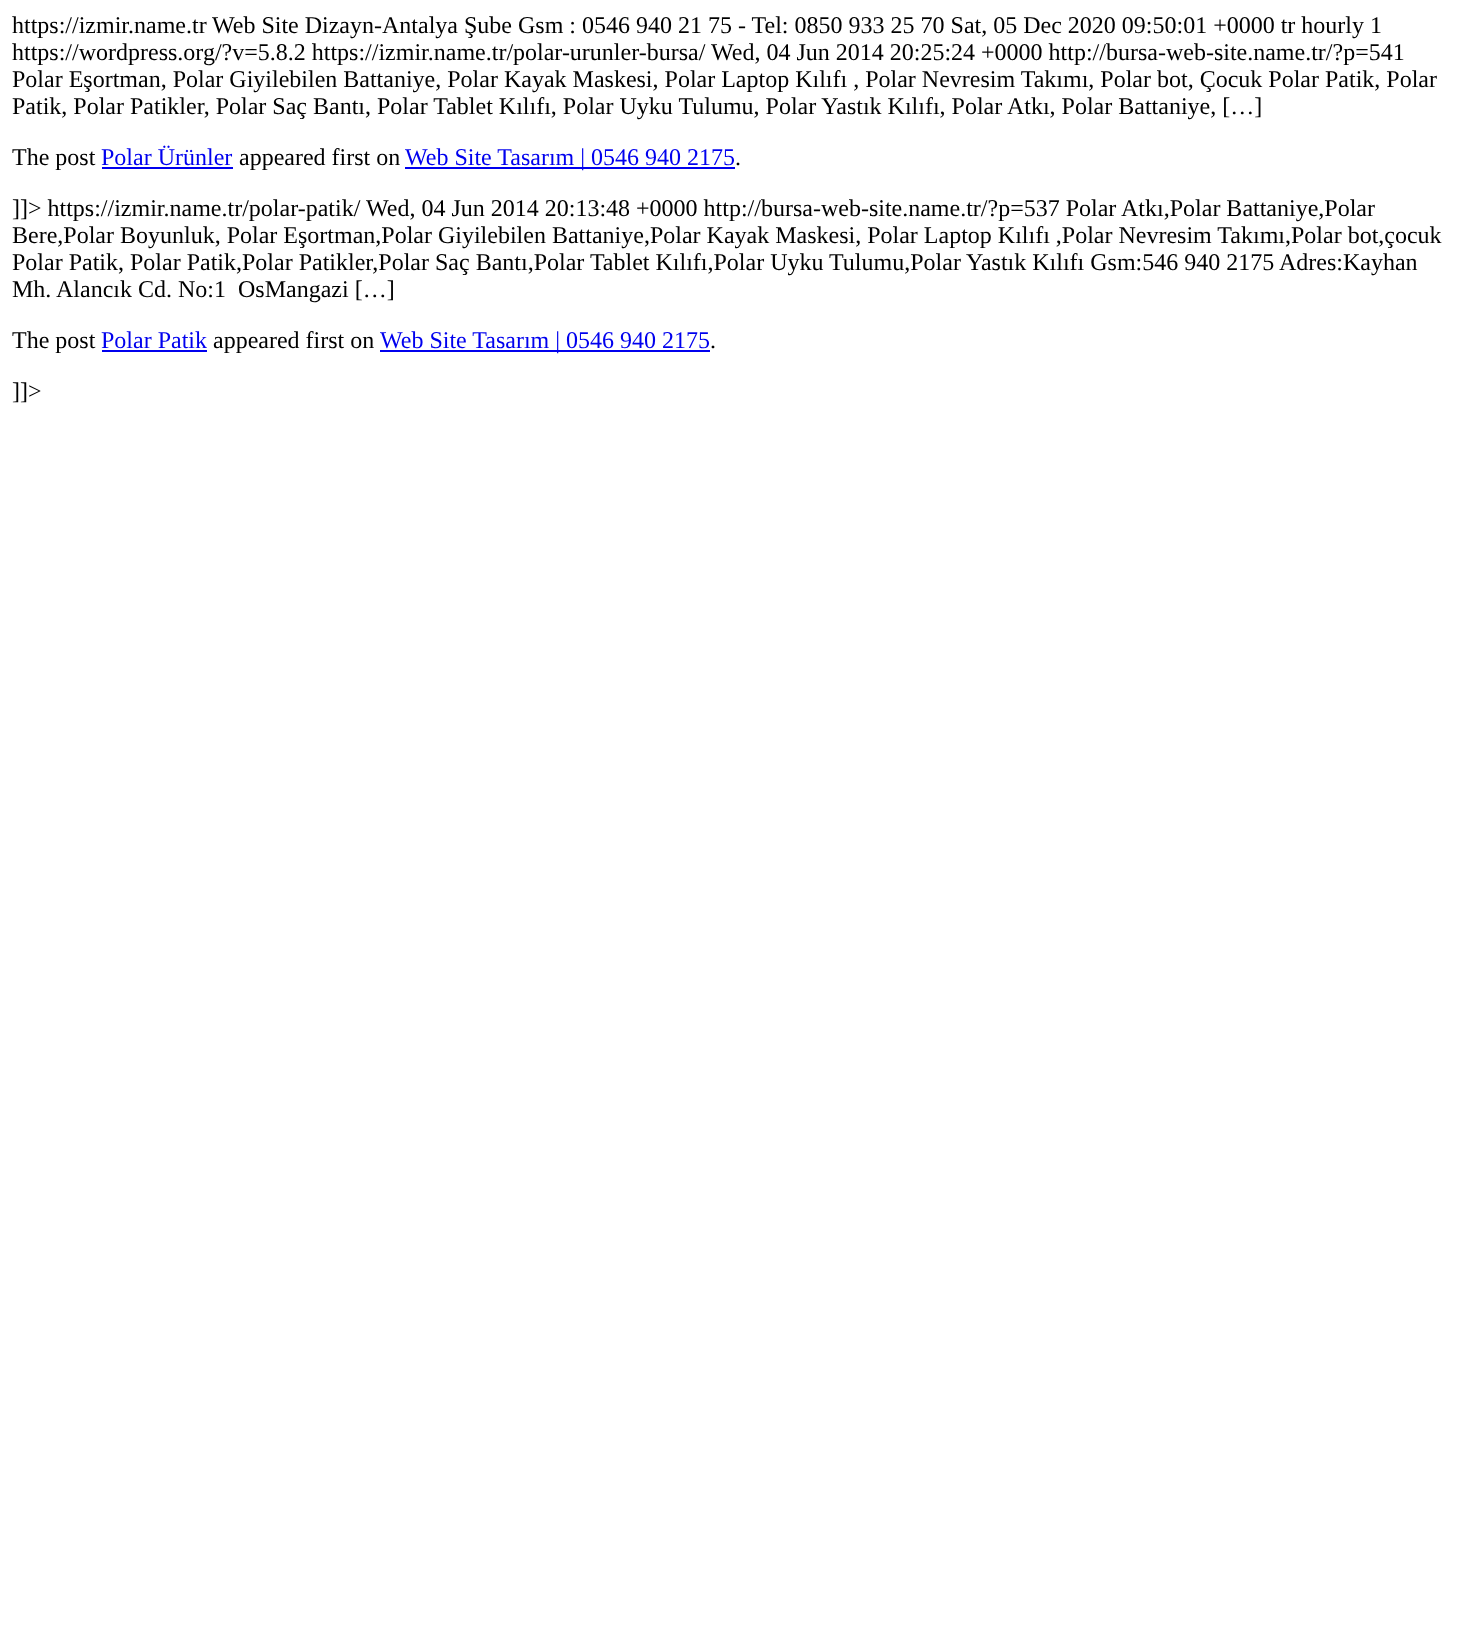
<svg xmlns="http://www.w3.org/2000/svg" xmlns:xlink="http://www.w3.org/1999/xlink" width="1458" height="1650" viewBox="0 0 1458 1650">
<style>
.cls-1{font:24px Liberation Serif;fill:#000000}
.cls-2{font:24px Liberation Serif;fill:#0000ee}
</style>
<rect width="100%" height="100%" fill="#ffffff"/>
<rect fill="#0000ee" x="102" y="167" width="131" height="2"/>
<rect fill="#0000ee" x="405" y="167" width="330" height="2"/>
<rect fill="#0000ee" x="102" y="350" width="105" height="2"/>
<rect fill="#0000ee" x="380" y="350" width="330" height="2"/>
<text class="cls-1" x="12" y="33">https://izmir.name.tr</text>
<text class="cls-1" x="212" y="33">Web Site Dizayn-Antalya Şube Gsm : 0546 940 21 75 - Tel: 0850 933 25 70 Sat, 05 Dec 2020 09:50:01 +0000 tr hourly 1</text>
<text class="cls-1" x="12" y="60">https://wordpress.org/?v=5.8.2 https://izmir.name.tr/polar-urunler-bursa/</text>
<text class="cls-1" x="711" y="60">Wed, 04 Jun 2014 20:25:24 +0000 http://bursa-web-site.name.tr/?p=541</text>
<text class="cls-1"><tspan x="12" y="87">Polar Eşortman, Polar Giyilebilen Battaniye, Polar Kayak Maskesi, Polar Laptop Kılıfı , Polar Nevresim Takımı, Polar bot, Çocuk Polar Patik, Polar</tspan><tspan x="12" y="114">Patik, Polar Patikler, Polar Saç Bantı, Polar Tablet Kılıfı, Polar Uyku Tulumu, Polar Yastık Kılıfı, Polar Atkı, Polar Battaniye, […]</tspan></text>
<text class="cls-1" x="12" y="165">The post</text>
<text class="cls-2" x="101" y="165">Polar Ürünler</text>
<text class="cls-1" x="239" y="165">appeared first on</text>
<text class="cls-2" x="405" y="165">Web Site Tasarım | 0546 940 2175</text>
<text class="cls-1" x="735" y="165">.</text>
<text class="cls-1" x="12" y="216">]]&gt; https://izmir.name.tr/polar-patik/</text>
<text class="cls-1" x="366" y="216">Wed, 04 Jun 2014 20:13:48 +0000 http://bursa-web-site.name.tr/?p=537 Polar Atkı,Polar Battaniye,Polar</text>
<text class="cls-1" xml:space="preserve"><tspan x="12" y="243">Bere,Polar Boyunluk, Polar Eşortman,Polar Giyilebilen Battaniye,Polar Kayak Maskesi, Polar Laptop Kılıfı ,Polar Nevresim Takımı,Polar bot,çocuk</tspan><tspan x="12" y="270">Polar Patik, Polar Patik,Polar Patikler,Polar Saç Bantı,Polar Tablet Kılıfı,Polar Uyku Tulumu,Polar Yastık Kılıfı Gsm:546 940 2175 Adres:Kayhan</tspan><tspan x="12" y="297">Mh. Alancık Cd. No:1  OsMangazi […]</tspan></text>
<text class="cls-1" x="12" y="348">The post</text>
<text class="cls-2" x="101" y="348">Polar Patik</text>
<text class="cls-1" x="213" y="348">appeared first on</text>
<text class="cls-2" x="380" y="348">Web Site Tasarım | 0546 940 2175</text>
<text class="cls-1" x="710" y="348">.</text>
<text class="cls-1" x="12" y="399">]]&gt;</text>
</svg>
